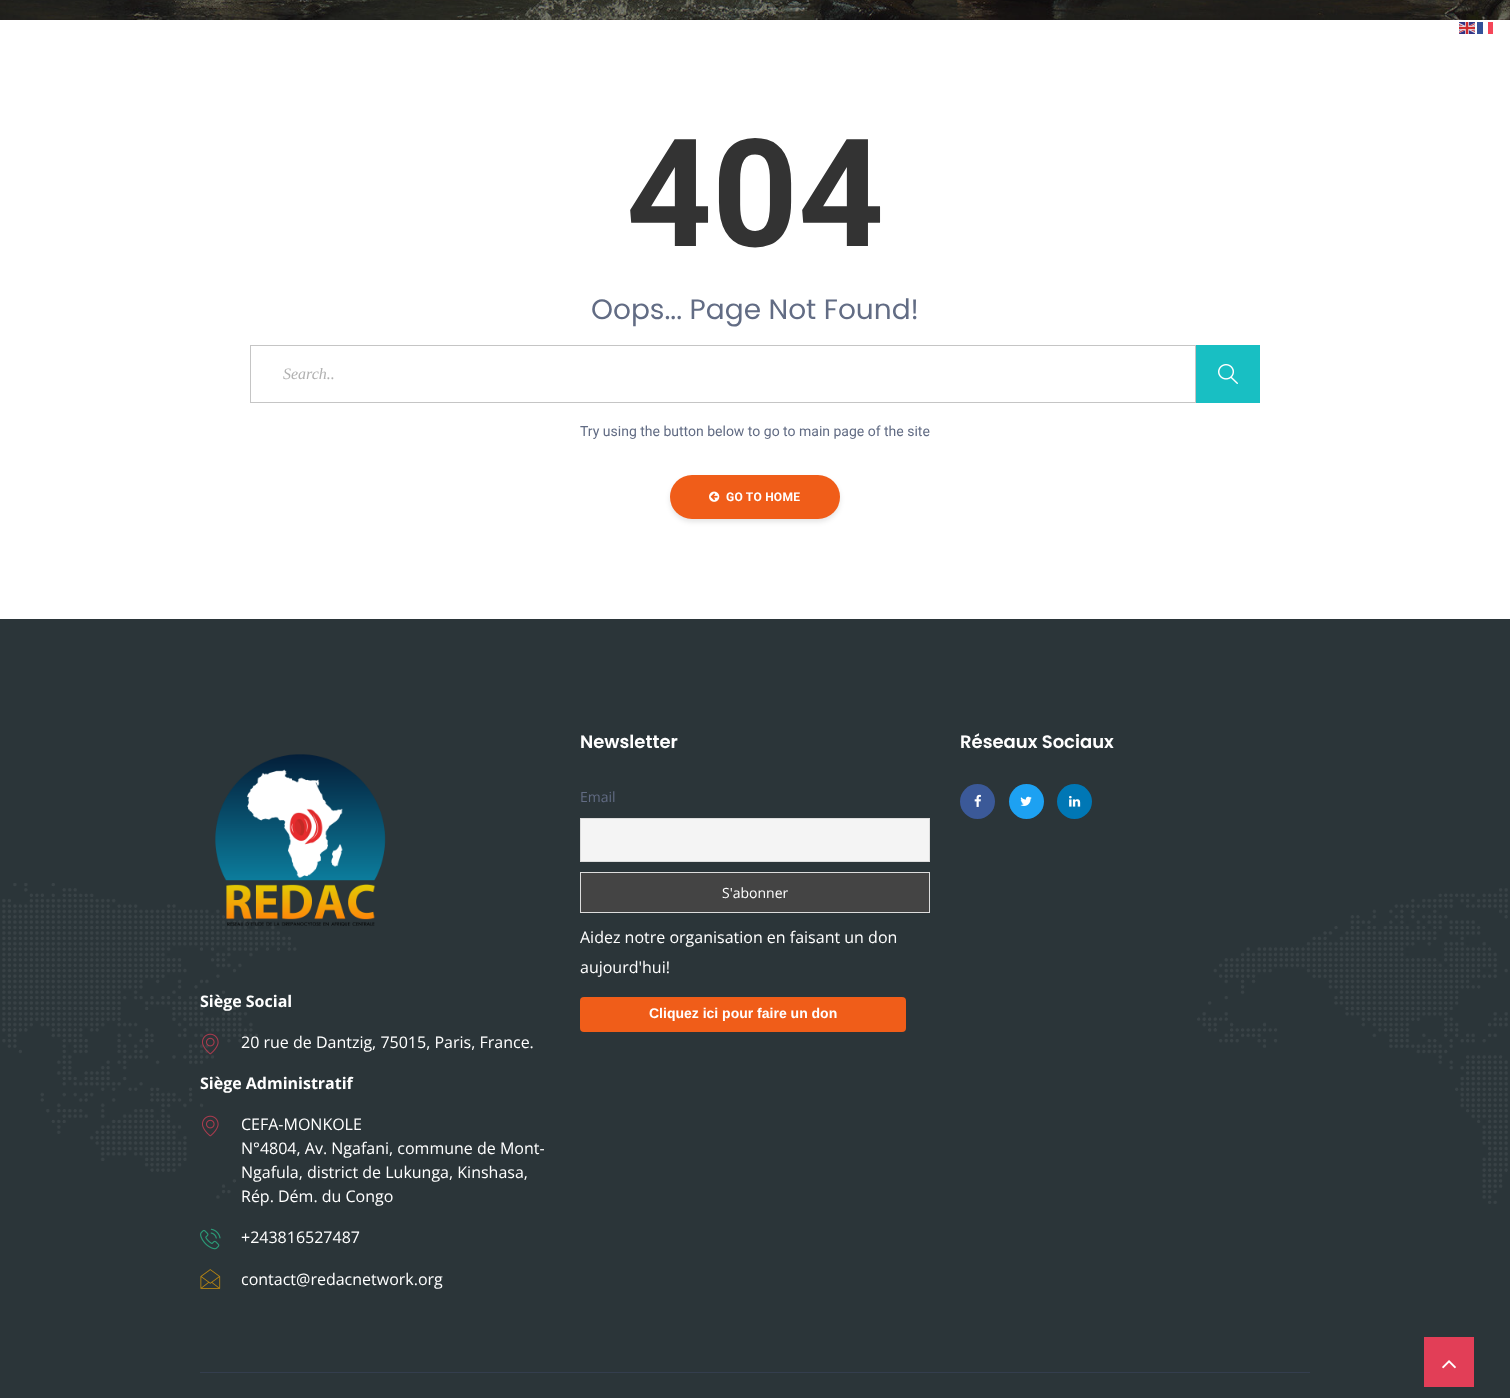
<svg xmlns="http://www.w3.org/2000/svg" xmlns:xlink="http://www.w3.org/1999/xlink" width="1510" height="1398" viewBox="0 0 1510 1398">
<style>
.cls-1{font:bold 150px Roboto;fill:#333333}
.cls-2{font:28px Poppins;fill:#626c84}
.cls-3{font:italic 16px Liberation Serif;fill:#b1b1b1}
.cls-4{font:14px Roboto;fill:#626c84}
.cls-5{font:bold 12px Roboto;letter-spacing:0.25px;fill:#ffffff}
.cls-6{font:600 18px Poppins;fill:#ffffff}
.cls-7{font:14px Open Sans;fill:#626c84}
.cls-8{font:14px Open Sans;fill:#ffffff}
.cls-9{font:16px Open Sans;fill:#ffffff}
.cls-10{font:bold 14px Liberation Sans;fill:#ffffff}
.cls-11{font:bold 16px Open Sans;fill:#ffffff}
</style>
<rect width="100%" height="100%" fill="#ffffff"/>
<image xlink:href="image0.png" x="0" y="0" width="1510" height="20"/>
<image xlink:href="image1.png" x="1459" y="22" width="16" height="12"/>
<rect fill="#335199" x="1477" y="22" width="6" height="12"/>
<rect fill="#f54659" x="1488" y="22" width="5" height="12"/>
<rect fill="none" stroke="#c5c5c5" x="250.5" y="345.5" width="945" height="57"/>
<rect fill="#18bfc3" x="1196" y="345" width="64" height="58"/>
<image xlink:href="image2.png" x="1218" y="364" width="20" height="20"/>
<rect fill="#000000" fill-opacity="0.1" filter="blur(2.5px)" x="670" y="478" width="170" height="44" rx="22"/>
<rect fill="#f05d19" x="670" y="475" width="170" height="44" rx="22"/>
<image xlink:href="image3.png" x="709" y="491" width="11" height="11"/>
<rect fill="#2b3539" x="0" y="619" width="1510" height="779"/>
<image xlink:href="image4.png" x="2" y="883" width="1506" height="321"/>
<rect fill="#f4f4f4" stroke="#dddddd" x="580.5" y="818.5" width="349" height="43"/>
<rect fill="#444444" stroke="#dddddd" x="580.5" y="872.5" width="349" height="40"/>
<rect fill="#f05d19" x="580" y="997" width="326" height="35" rx="4"/>
<circle fill="#3b5998" cx="977.5" cy="801.5" r="17.5"/>
<image xlink:href="image5.png" x="974" y="794" width="7" height="13"/>
<circle fill="#1da1f2" cx="1026.5" cy="801.5" r="17.5"/>
<image xlink:href="image6.png" x="1020" y="796" width="12" height="10"/>
<circle fill="#0077b5" cx="1074.5" cy="801.5" r="17.5"/>
<image xlink:href="image7.png" x="1069" y="795" width="12" height="12"/>
<image xlink:href="image8.png" x="215" y="754" width="171" height="172"/>
<image xlink:href="image9.png" x="202" y="1033" width="17" height="22"/>
<image xlink:href="image10.png" x="202" y="1115" width="17" height="22"/>
<image xlink:href="image11.png" x="200" y="1228" width="21" height="22"/>
<image xlink:href="image12.png" x="200" y="1269" width="21" height="20"/>
<rect fill="#343e4e" x="200" y="1372" width="1110" height="1"/>
<rect fill="#e23e57" x="1424" y="1337" width="50" height="50"/>
<image xlink:href="image13.png" x="1442" y="1360" width="14" height="9"/>
<text class="cls-1" x="626" y="246">404</text>
<text class="cls-2" x="591" y="319">Oops... Page Not Found!</text>
<text class="cls-3" x="283" y="379">Search..</text>
<text class="cls-4" x="580" y="436">Try using the button below to go to main page of the site</text>
<text class="cls-5" x="726" y="501">GO TO HOME</text>
<text class="cls-6" x="580" y="748">Newsletter</text>
<text class="cls-7" x="580" y="802">Email</text>
<text class="cls-8" x="722" y="898">S'abonner</text>
<text class="cls-9"><tspan x="580" y="943">Aidez notre organisation en faisant un don</tspan><tspan x="580" y="973">aujourd'hui!</tspan></text>
<text class="cls-10" x="649" y="1018">Cliquez ici pour faire un don</text>
<text class="cls-6" x="960" y="748">Réseaux Sociaux</text>
<text class="cls-11" x="200" y="1007">Siège Social</text>
<text class="cls-9" x="241" y="1048">20 rue de Dantzig, 75015, Paris, France.</text>
<text class="cls-11" x="200" y="1089">Siège Administratif</text>
<text class="cls-9"><tspan x="241" y="1130">CEFA-MONKOLE</tspan><tspan x="241" y="1154">N°4804, Av. Ngafani, commune de Mont-</tspan><tspan x="241" y="1178">Ngafula, district de Lukunga, Kinshasa,</tspan><tspan x="241" y="1202">Rép. Dém. du Congo</tspan></text>
<text class="cls-9" x="241" y="1243">+243816527487</text>
<text class="cls-9" x="241" y="1285">contact@redacnetwork.org</text>
</svg>
